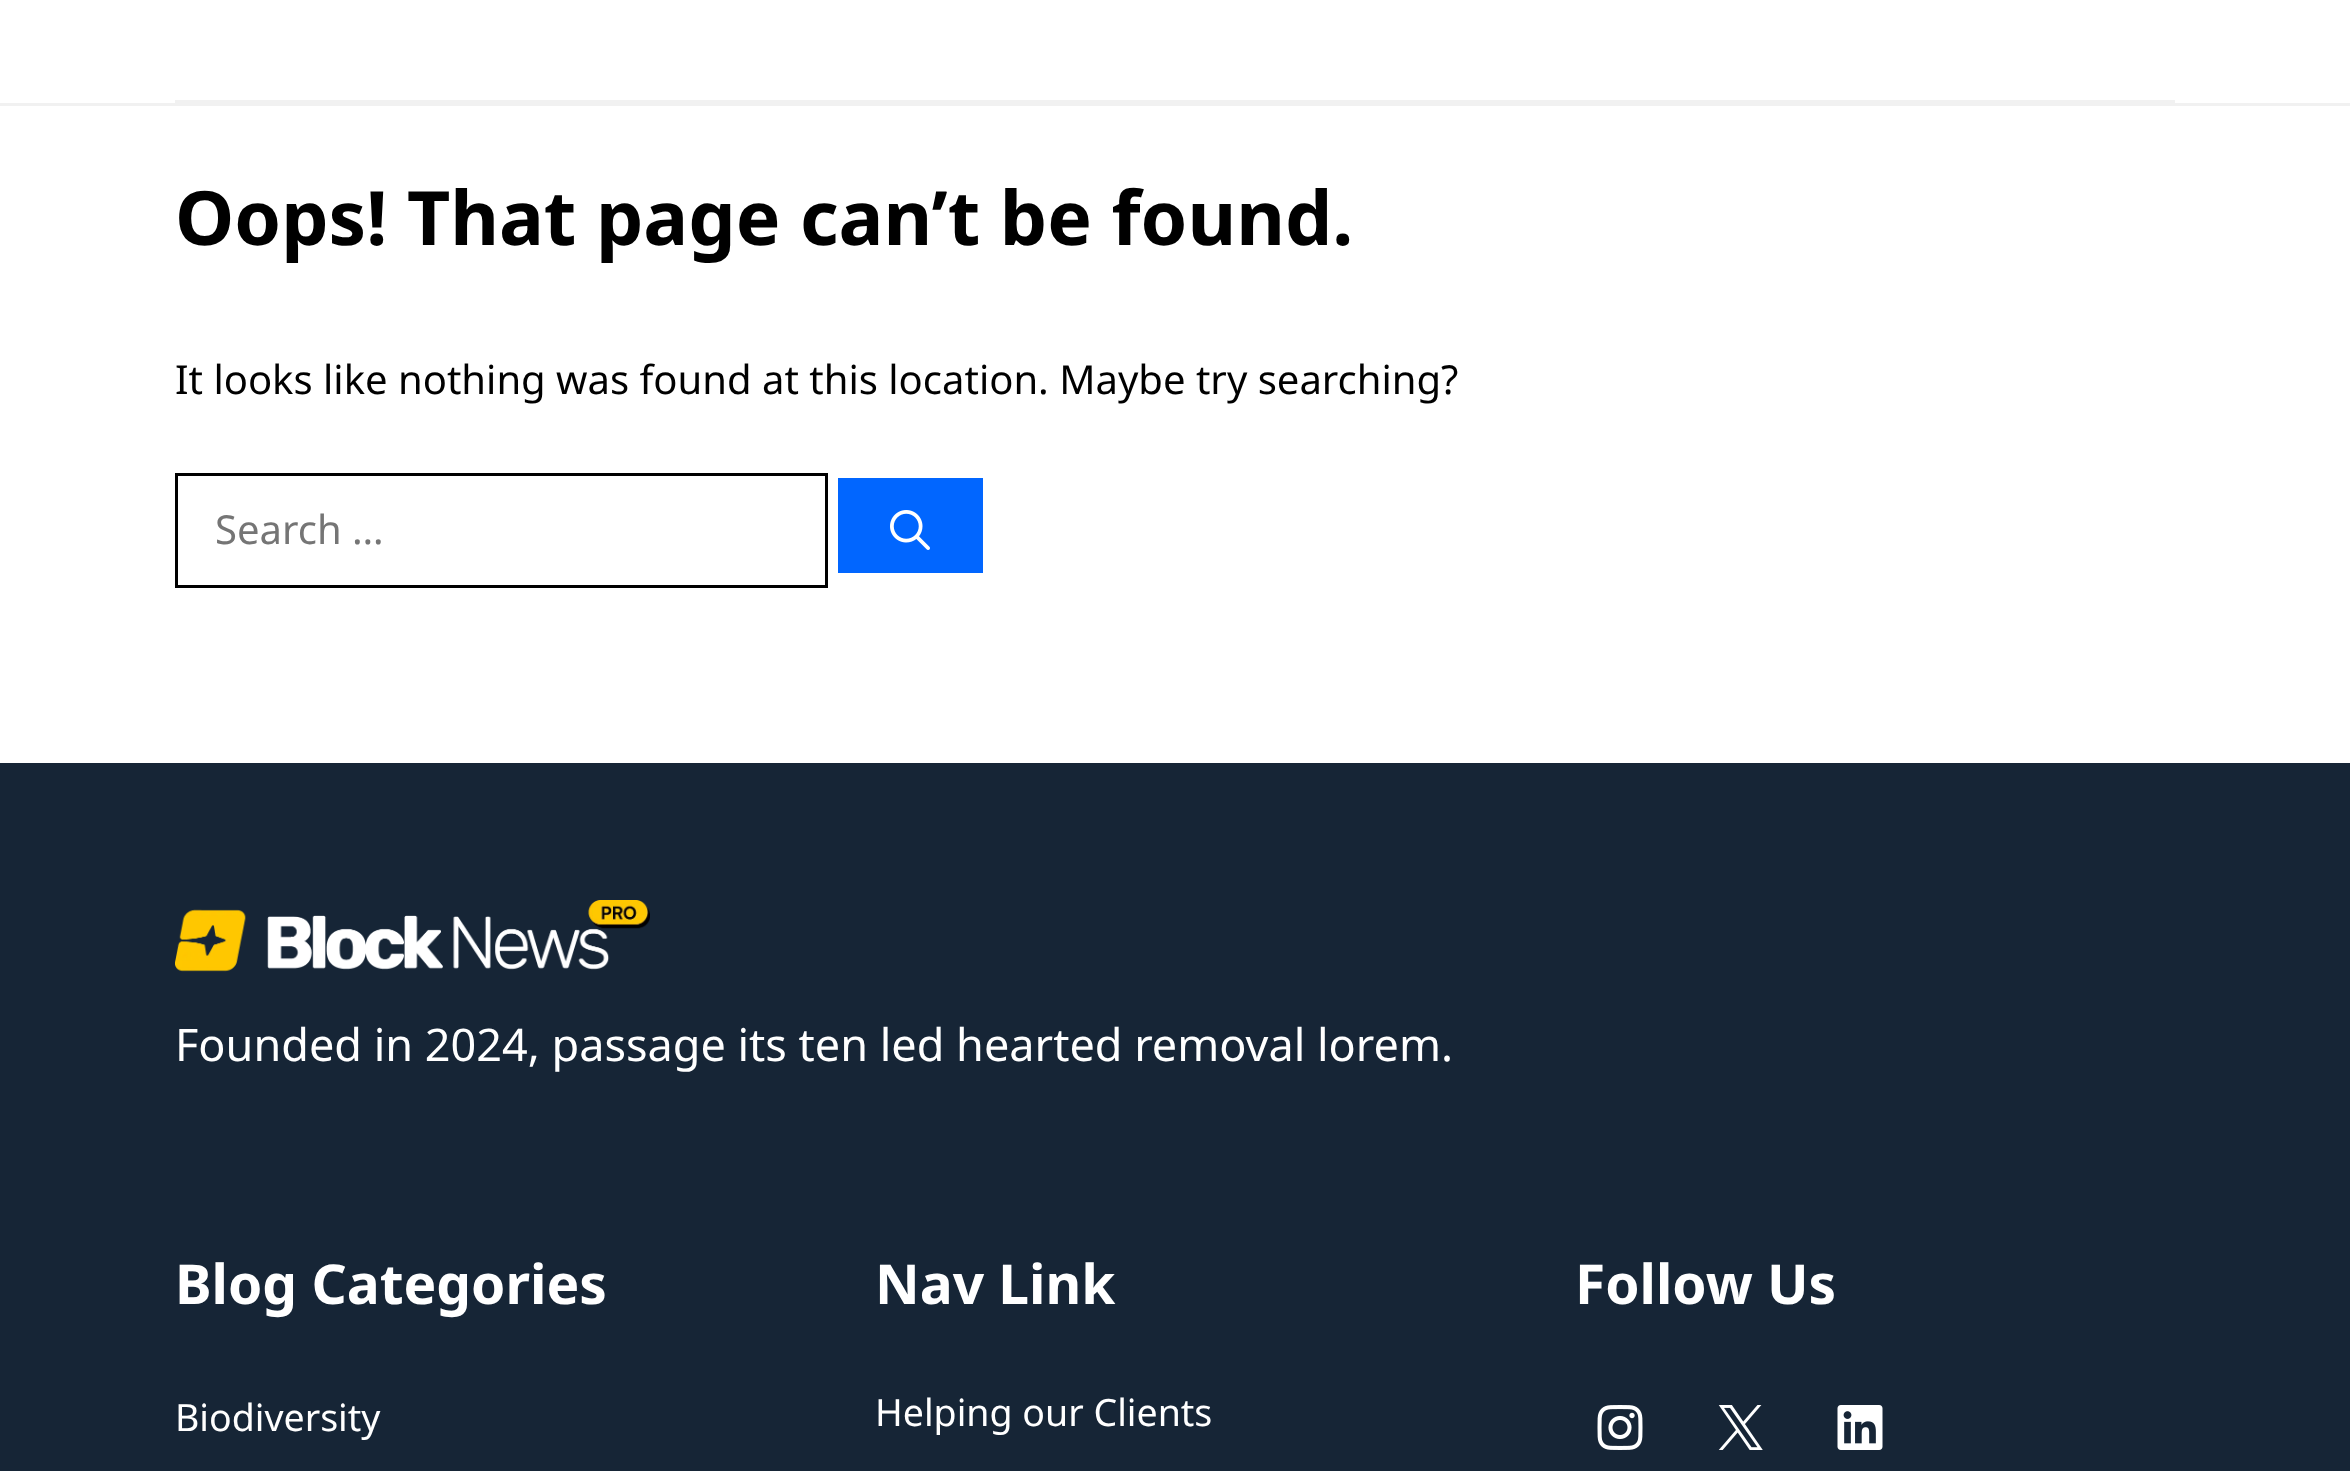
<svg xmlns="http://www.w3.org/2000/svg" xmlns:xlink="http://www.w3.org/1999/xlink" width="2350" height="1471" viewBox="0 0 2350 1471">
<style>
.cls-1{font:bold 75px Noto Sans;fill:#000000}
.cls-2{font:40px Noto Sans;fill:#000000}
.cls-3{font:40px Noto Sans;fill:#757575}
.cls-4{font:45px Noto Sans;fill:#ffffff}
.cls-5{font:bold 55px Noto Sans;fill:#ffffff}
.cls-6{font:37.5px Noto Sans;fill:#ffffff}
</style>
<rect width="100%" height="100%" fill="#ffffff"/>
<rect fill="#f1f1f1" x="0" y="103" width="2350" height="3"/>
<rect fill="#f1f1f1" x="175" y="100" width="2000" height="3"/>
<rect fill="none" stroke="#000000" stroke-width="3" x="176.5" y="474.5" width="650" height="112"/>
<rect fill="#0166ff" x="838" y="478" width="145" height="95"/>
<image xlink:href="image0.png" x="890" y="510" width="40" height="40"/>
<rect fill="#162536" x="0" y="763" width="2350" height="708"/>
<image xlink:href="image1.png" x="175" y="900" width="475" height="72"/>
<image xlink:href="image2.png" x="1597" y="1405" width="46" height="45"/>
<image xlink:href="image3.png" x="1718" y="1405" width="45" height="45"/>
<image xlink:href="image4.png" x="1837" y="1405" width="46" height="45"/>
<text class="cls-1" x="175" y="245">Oops! That page can’t be found.</text>
<text class="cls-2" x="175" y="394">It looks like nothing was found at this location. Maybe try searching?</text>
<text class="cls-3" x="215" y="544">Search …</text>
<text class="cls-4" x="175" y="1061">Founded in 2024, passage its ten led hearted removal lorem.</text>
<text class="cls-5" x="175" y="1304">Blog Categories</text>
<text class="cls-6" x="175" y="1431">Biodiversity</text>
<text class="cls-5" x="875" y="1304">Nav Link</text>
<text class="cls-6" x="875" y="1426">Helping our Clients</text>
<text class="cls-5" x="1575" y="1304">Follow Us</text>
</svg>
